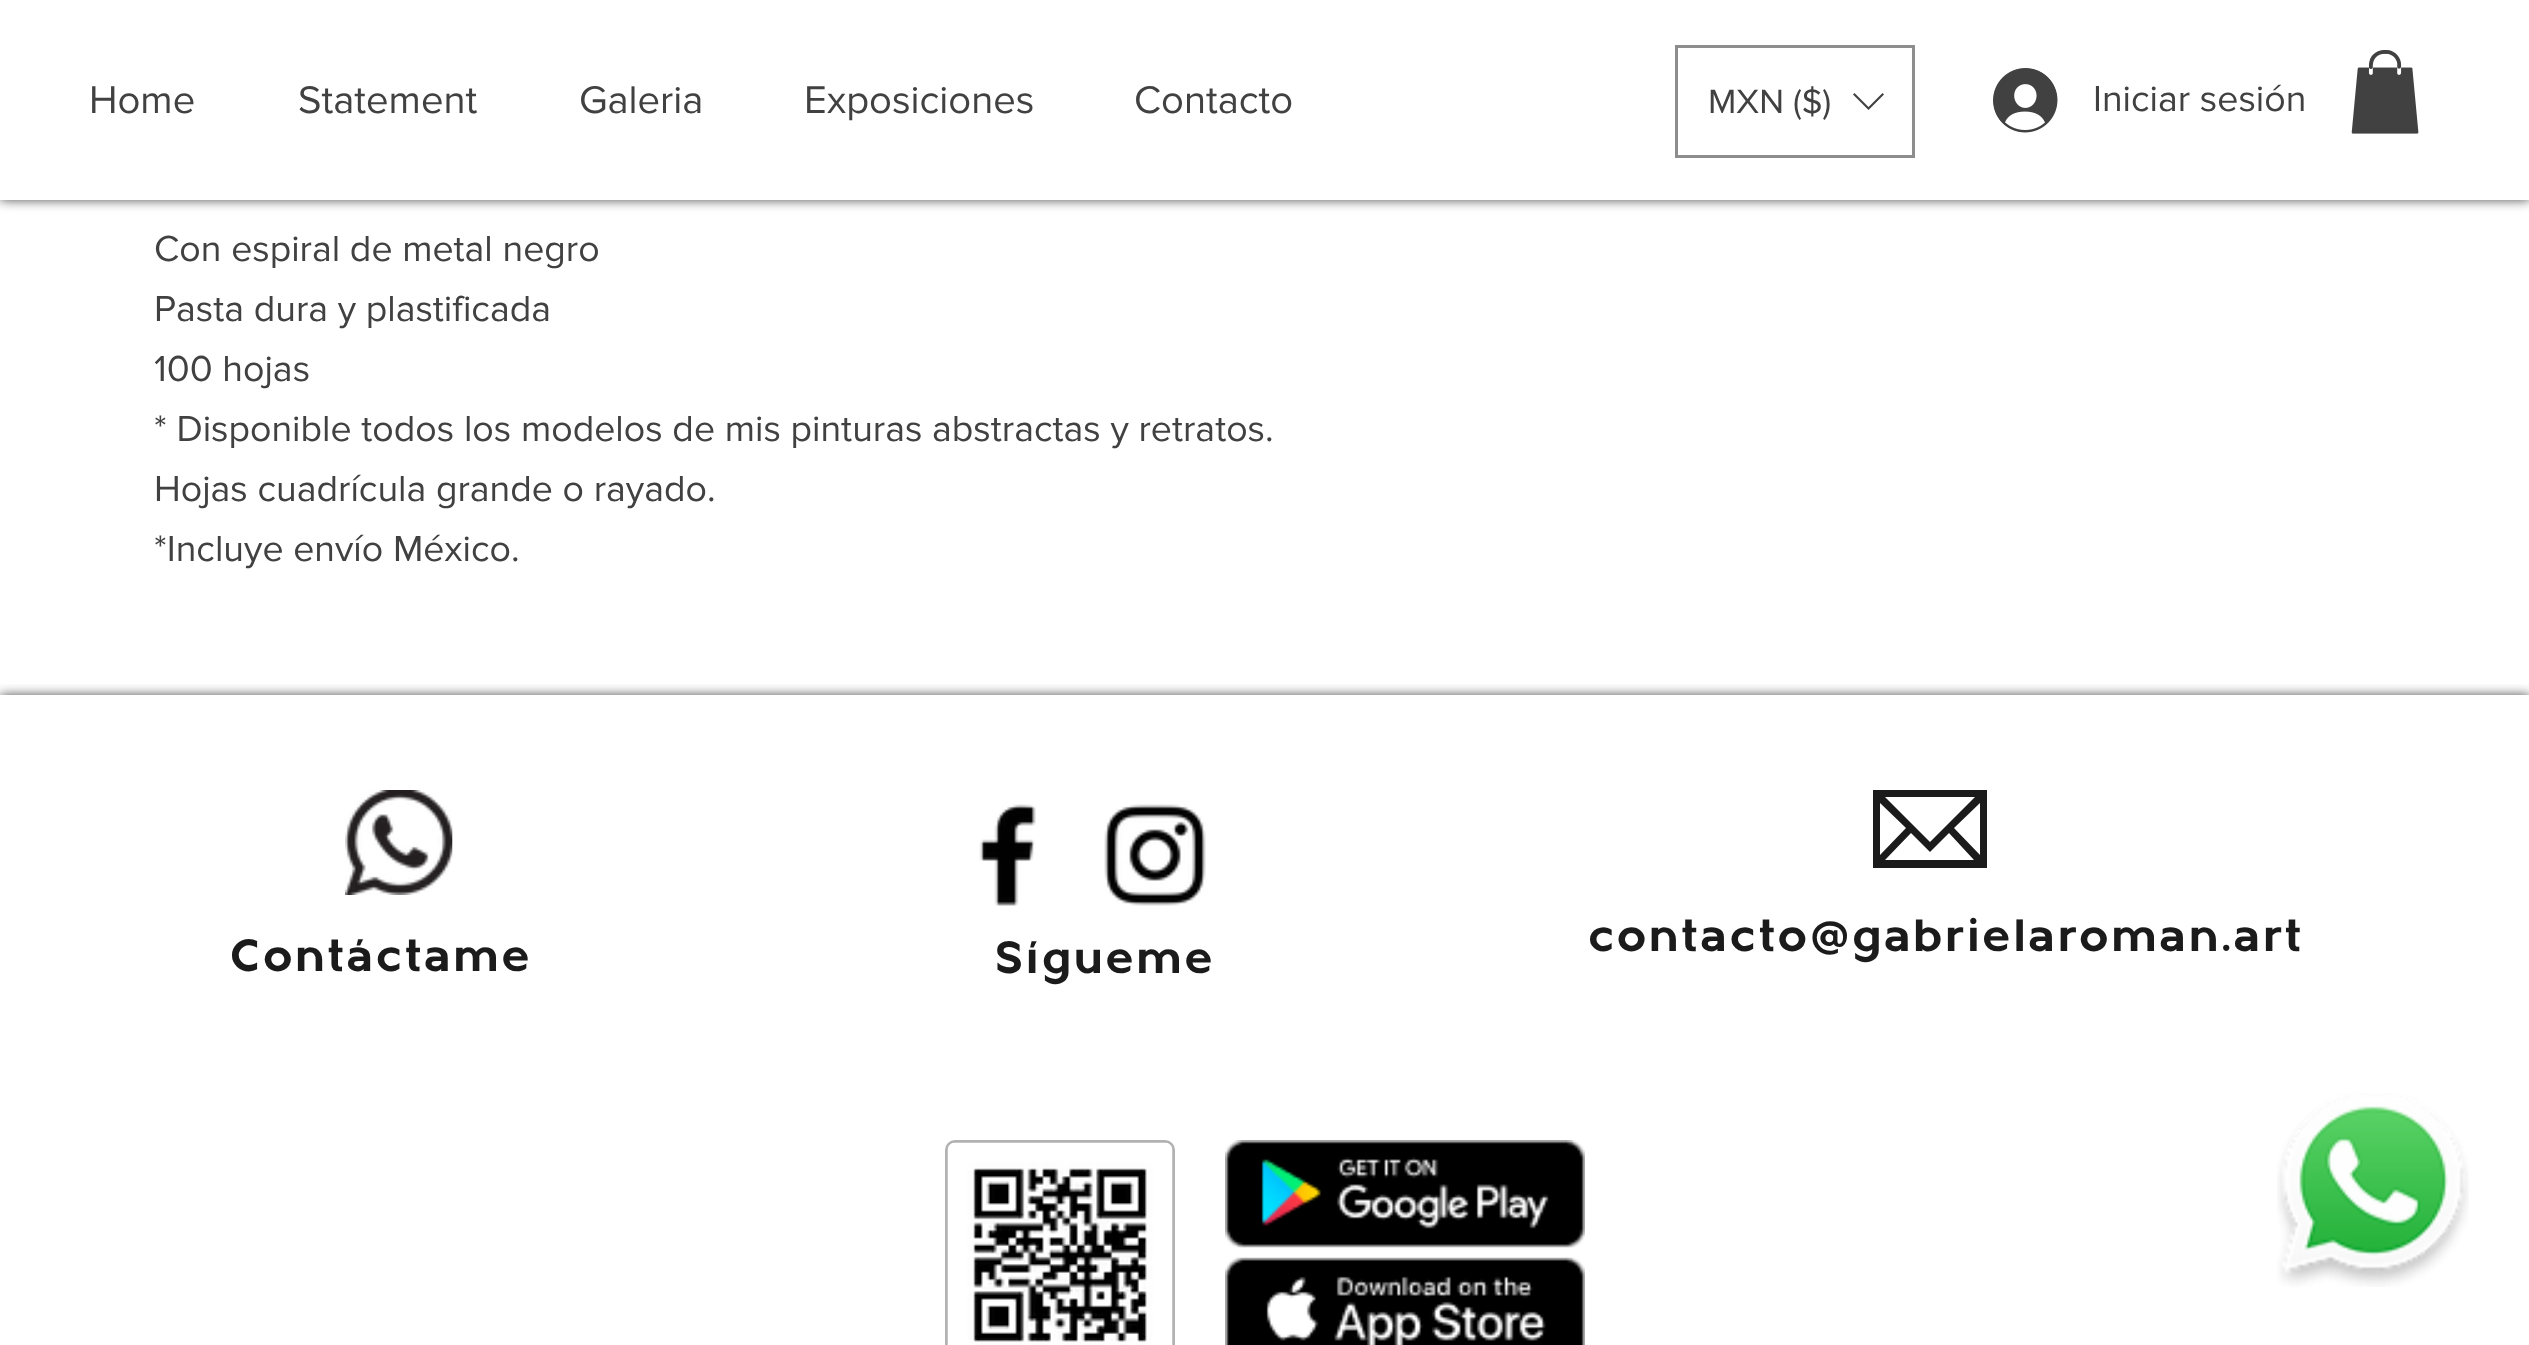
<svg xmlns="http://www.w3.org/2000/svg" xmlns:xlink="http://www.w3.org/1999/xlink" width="2529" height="1345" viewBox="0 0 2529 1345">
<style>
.cls-1{font:40px 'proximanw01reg';fill:#414141}
.cls-2{font:35px 'proximanw01reg';fill:#414141}
.cls-3{font:37.5px 'proximanw01reg';fill:#414141}
.cls-4{font:bold 47.5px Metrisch;letter-spacing:2.4px;fill:#1c1b1b}
</style>
<defs>
<clipPath id="clip1"><rect x="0" y="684" width="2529" height="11"/></clipPath>
</defs>
<rect width="100%" height="100%" fill="#ffffff"/>
<rect fill="#000000" fill-opacity="0.7" filter="blur(6px)" x="0" y="0" width="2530" height="200"/>
<rect fill="#ffffff" x="0" y="0" width="2529" height="200"/>
<rect fill="none" stroke="#8d8d8d" stroke-width="3" x="1676.5" y="46.5" width="237" height="110"/>
<path fill="#414141" fill-rule="evenodd" d="M1882.5 93L1884 94.5L1868.5 110L1853 94.5L1854.5 93L1868.5 107Z"/>
<image xlink:href="image0.png" x="1993" y="68" width="65" height="65"/>
<image xlink:href="image1.png" x="2351" y="50" width="68" height="84"/>
<g clip-path="url(#clip1)">
<rect fill="#000000" fill-opacity="0.7" filter="blur(6px)" x="0" y="695" width="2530" height="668"/>
</g>
<image xlink:href="image2.png" x="345" y="790" width="108" height="105"/>
<image xlink:href="image3.png" x="979" y="804" width="57" height="102"/>
<image xlink:href="image4.png" x="1104" y="804" width="102" height="102"/>
<path fill="#1c1b1b" d="M1873 790V868H1987V790ZM1930 842L1885 797H1975ZM1906 828L1880 855V803ZM1911 833L1930 852L1949 833L1974 860H1885ZM1954 828L1980 803V855Z"/>
<rect fill="none" stroke="#cccccc" stroke-width="3" x="946.5" y="1141.5" width="227" height="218" rx="11.5"/>
<rect fill="none" stroke="#b2b2b2" stroke-width="3" x="946.5" y="1141.5" width="227" height="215" rx="8.5"/>
<image xlink:href="image5.png" x="947" y="1142" width="226" height="203"/>
<image xlink:href="image6.png" x="1225" y="1140" width="360" height="108"/>
<image xlink:href="image7.png" x="1225" y="1257" width="360" height="88"/>
<image xlink:href="image8.png" x="2277" y="1093" width="192" height="194"/>
<text class="cls-1" x="89" y="113">Home</text>
<text class="cls-1" x="298" y="113">Statement</text>
<text class="cls-1" x="579" y="113">Galeria</text>
<text class="cls-1" x="804" y="113">Exposiciones</text>
<text class="cls-1" x="1134" y="113">Contacto</text>
<text class="cls-2" x="1708" y="113">MXN ($)</text>
<text class="cls-3" x="2093" y="111">Iniciar sesión</text>
<text class="cls-3"><tspan x="154" y="261">Con espiral de metal negro</tspan><tspan x="154" y="321">Pasta dura y plastificada</tspan><tspan x="154" y="381">100 hojas</tspan><tspan x="154" y="441">* Disponible todos los modelos de mis pinturas abstractas y retratos.</tspan><tspan x="154" y="501">Hojas cuadrícula grande o rayado.</tspan><tspan x="154" y="561">*Incluye envío México.</tspan></text>
<text class="cls-4" x="230" y="971">Contáctame</text>
<text class="cls-4" x="994" y="973">Sígueme</text>
<text class="cls-4" x="1588" y="951">contacto@gabrielaroman.art</text>
</svg>
